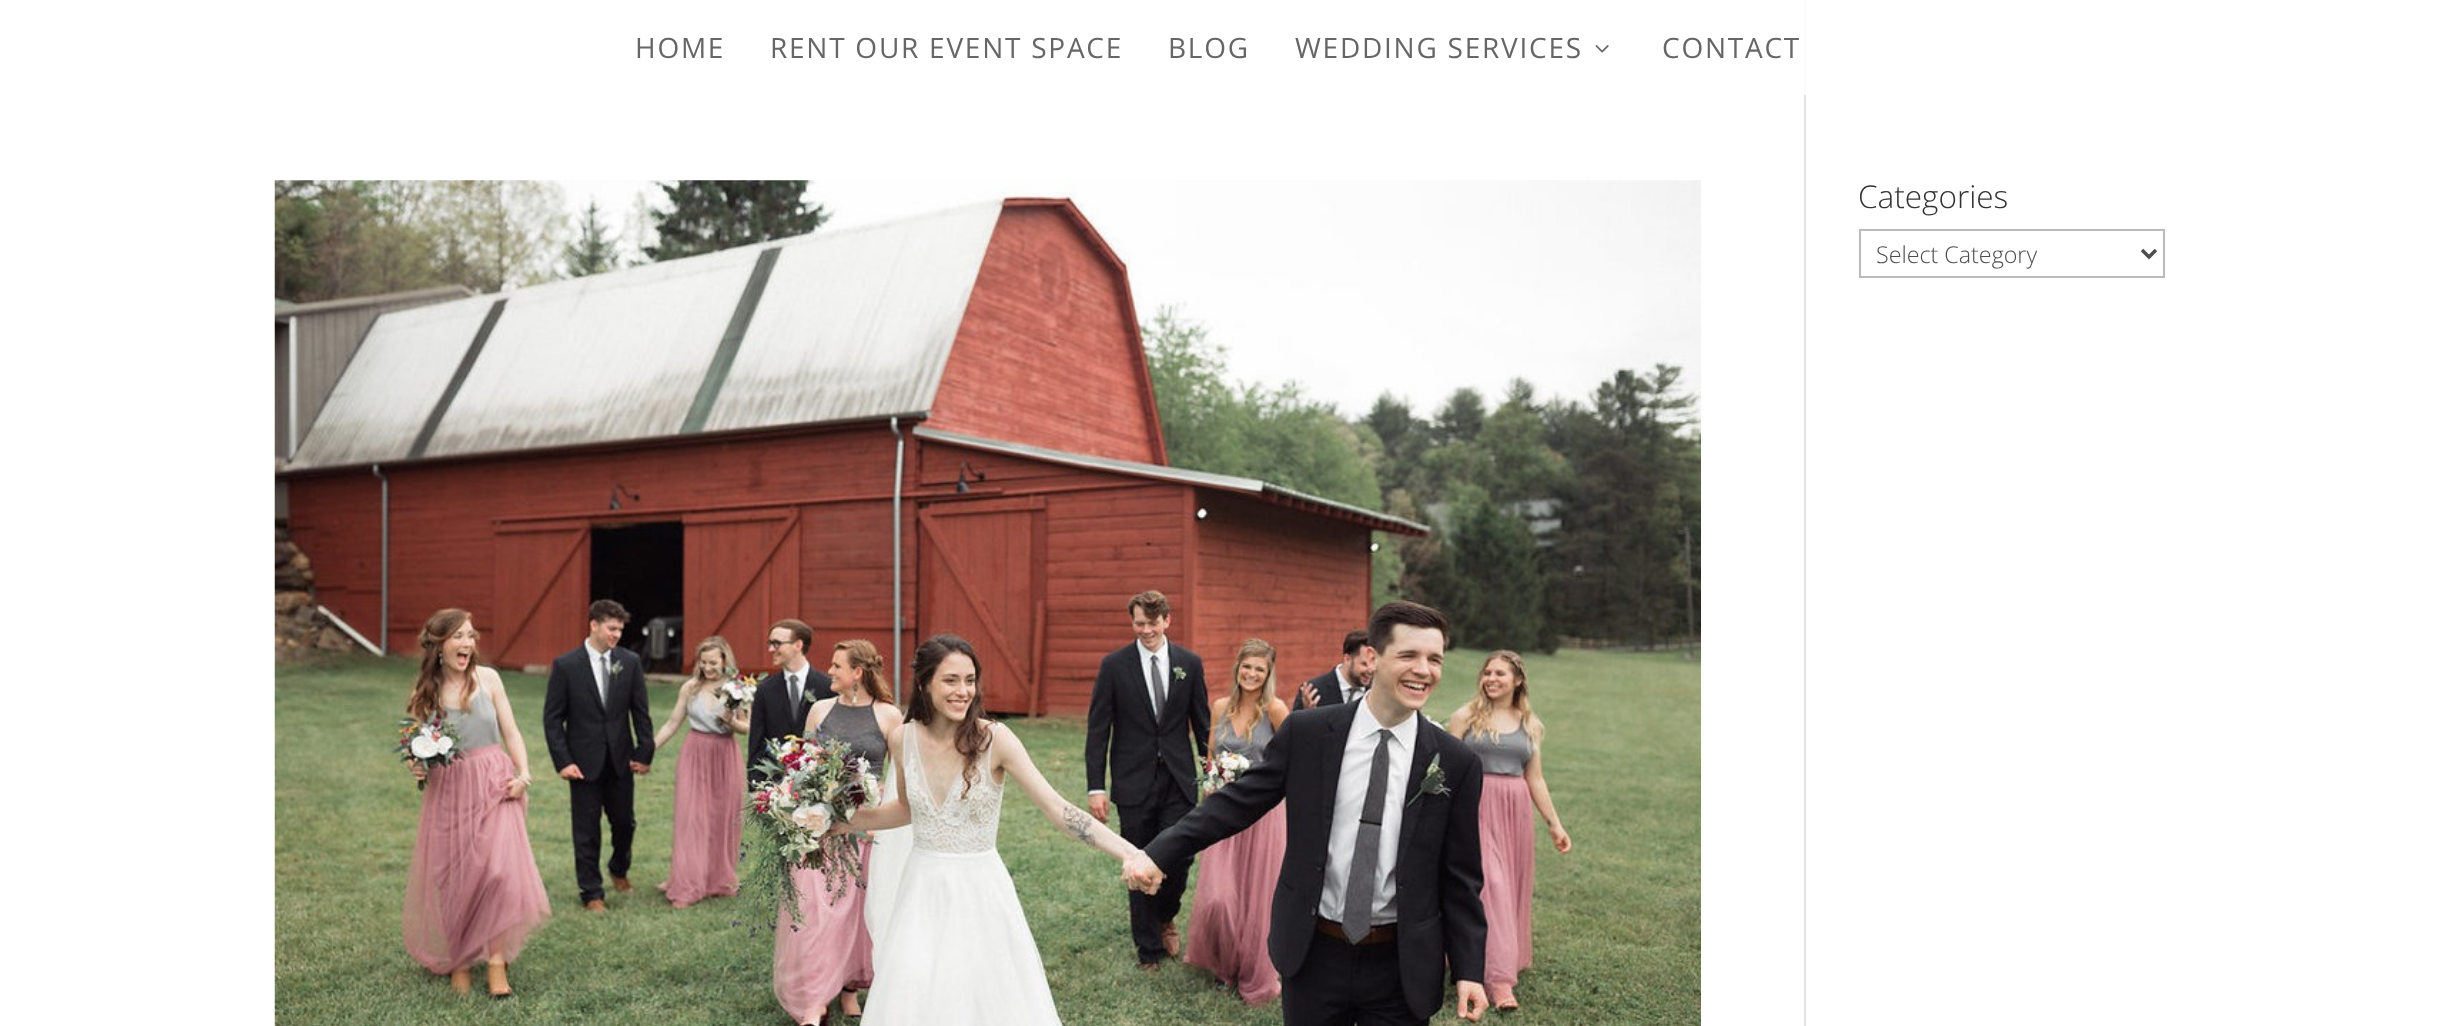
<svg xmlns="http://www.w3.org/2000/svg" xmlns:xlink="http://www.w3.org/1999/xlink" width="2438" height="1026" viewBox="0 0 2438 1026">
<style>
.cls-1{font:28px Open Sans;letter-spacing:1.75px;fill:#666666}
.cls-2{font:300 31.5px Open Sans;fill:#333333}
.cls-3{font:300 23.25px Open Sans;fill:#4e4e4e}
</style>
<rect width="100%" height="100%" fill="#ffffff"/>
<image xlink:href="image0.png" x="1595" y="45" width="14" height="8"/>
<rect fill="#e2e2e2" x="1804" y="95" width="2" height="931"/>
<rect fill="#fcfcfc" x="1804" y="0" width="2" height="95"/>
<image xlink:href="image1.png" x="274" y="180" width="1427" height="846"/>
<rect fill="none" stroke="#bbbbbb" stroke-width="2" x="1860" y="230" width="304" height="47"/>
<path fill="none" stroke="#4e4e4e" stroke-width="3.5" d="M2142 250L2149 257L2156 250"/>
<text class="cls-1" x="635" y="58">HOME</text>
<text class="cls-1" x="770" y="58">RENT OUR EVENT SPACE</text>
<text class="cls-1" x="1168" y="58">BLOG</text>
<text class="cls-1" x="1295" y="58">WEDDING SERVICES</text>
<text class="cls-1" x="1662" y="58">CONTACT</text>
<text class="cls-2" x="1858" y="208">Categories</text>
<text class="cls-3" x="1876" y="263">Select Category</text>
</svg>
